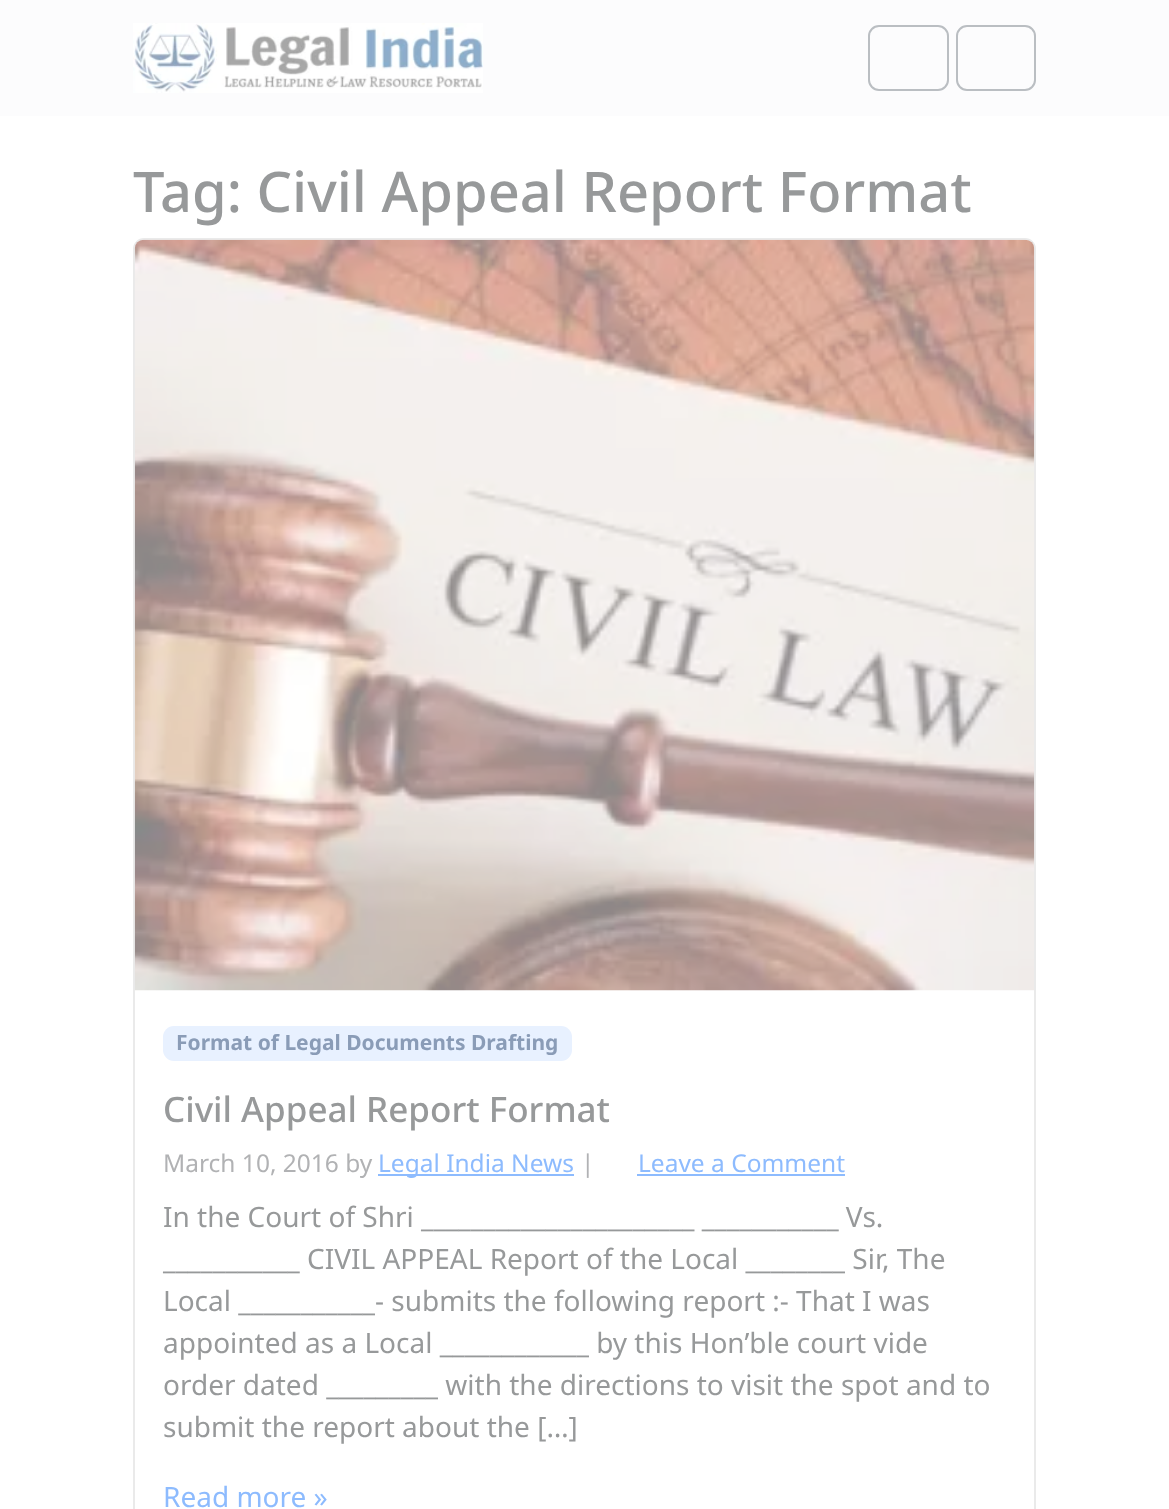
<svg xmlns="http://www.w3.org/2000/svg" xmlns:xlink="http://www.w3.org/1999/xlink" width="1169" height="1509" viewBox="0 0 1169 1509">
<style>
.cls-1{font:500 56px Noto Sans;fill:#97999a}
.cls-2{font:bold 21px Noto Sans;fill:#8a9cb7}
.cls-3{font:500 35px Noto Sans;fill:#97999a}
.cls-4{font:24.5px Noto Sans;fill:#b1b2b4}
.cls-5{font:24.5px Noto Sans;fill:#8dbbfe}
.cls-6{font:28px Noto Sans;fill:#97999a}
.cls-7{font:28px Noto Sans;fill:#8dbbfe}
</style>
<rect width="100%" height="100%" fill="#ffffff"/>
<rect fill="#fcfcfd" x="0" y="0" width="1169" height="116"/>
<image xlink:href="image0.png" x="133" y="23" width="350" height="70"/>
<rect fill="none" stroke="#babec2" stroke-width="2" x="869" y="26" width="79" height="64" rx="10"/>
<rect fill="none" stroke="#babec2" stroke-width="2" x="957" y="26" width="78" height="64" rx="10"/>
<rect fill="none" stroke="#eaeaea" stroke-width="2" x="134" y="239" width="901" height="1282" rx="10"/>
<image xlink:href="image1.png" x="134" y="239" width="901" height="752"/>
<rect fill="#e8f1ff" x="163" y="1026" width="409" height="35" rx="11"/>
<rect fill="#8dbbfe" x="378" y="1174" width="196" height="2"/>
<rect fill="#8dbbfe" x="637" y="1174" width="208" height="2"/>
<text class="cls-1" x="133" y="212">Tag: Civil Appeal Report Format</text>
<text class="cls-2" x="176" y="1050">Format of Legal Documents Drafting</text>
<text class="cls-3" x="163" y="1122">Civil Appeal Report Format</text>
<text class="cls-4" x="163" y="1172">March 10, 2016 by</text>
<text class="cls-5" x="378" y="1172">Legal India News</text>
<text class="cls-4" x="581" y="1172">|</text>
<text class="cls-5" x="638" y="1172">Leave a Comment</text>
<text class="cls-6"><tspan x="163" y="1227">In the Court of Shri ______________________ ___________ Vs.</tspan><tspan x="163" y="1269">___________ CIVIL APPEAL Report of the Local ________ Sir, The</tspan><tspan x="163" y="1311">Local ___________- submits the following report :- That I was</tspan><tspan x="163" y="1353">appointed as a Local ____________ by this Hon’ble court vide</tspan><tspan x="163" y="1395">order dated _________ with the directions to visit the spot and to</tspan><tspan x="163" y="1437">submit the report about the […]</tspan></text>
<text class="cls-7" x="163" y="1507">Read more »</text>
</svg>
